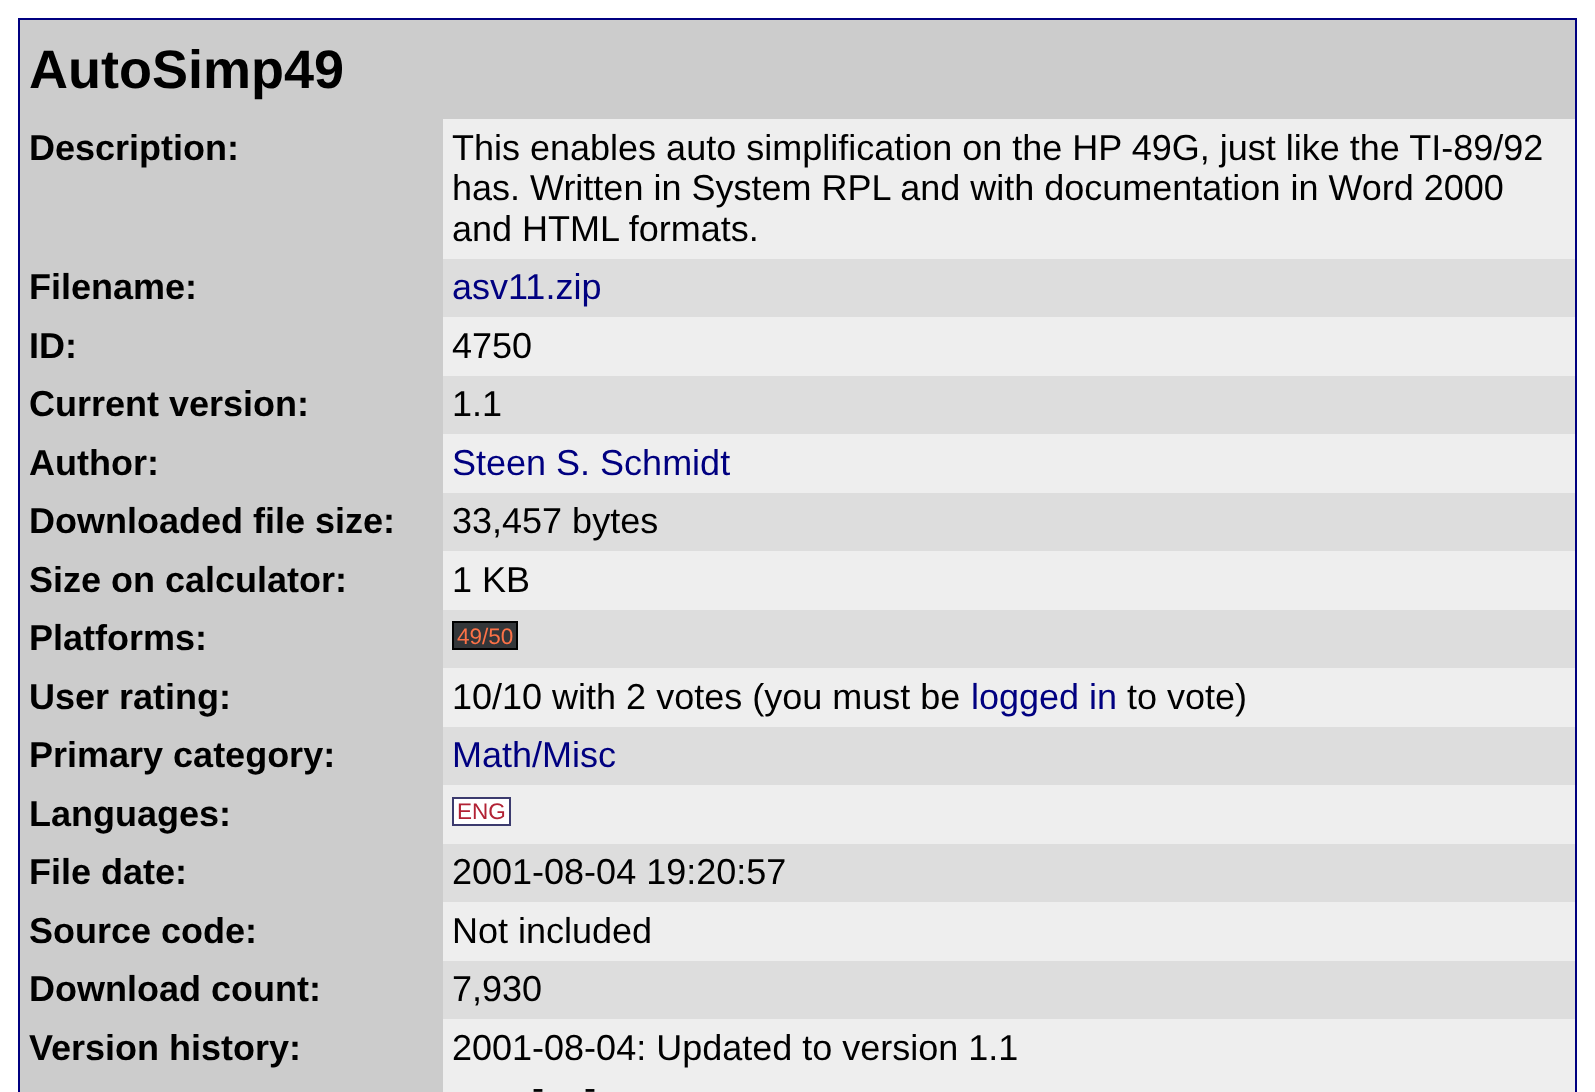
<svg xmlns="http://www.w3.org/2000/svg" xmlns:xlink="http://www.w3.org/1999/xlink" width="1595" height="1092" viewBox="0 0 1595 1092">
<style>
.cls-1{font:bold 54px Liberation Sans;fill:#000000}
.cls-2{font:bold 36px Liberation Sans;fill:#000000}
.cls-3{font:36px Liberation Sans;fill:#000000}
.cls-4{font:36px Liberation Sans;fill:#000080}
.cls-5{font:22.5px Liberation Sans;fill:#fd7247}
.cls-6{font:22.5px Liberation Sans;fill:#b22234}
</style>
<rect width="100%" height="100%" fill="#ffffff"/>
<rect fill="#000080" x="18" y="18" width="1559" height="1074"/>
<rect fill="#eeeeee" x="443" y="119" width="1132" height="973"/>
<rect fill="#cccccc" x="20" y="20" width="1555" height="99"/>
<rect fill="#cccccc" x="20" y="119" width="423" height="973"/>
<rect fill="#dddddd" x="443" y="259" width="1132" height="58"/>
<rect fill="#dddddd" x="443" y="376" width="1132" height="58"/>
<rect fill="#dddddd" x="443" y="493" width="1132" height="58"/>
<rect fill="#dddddd" x="443" y="610" width="1132" height="58"/>
<rect fill="#333639" stroke="#000000" stroke-width="2" x="453" y="622" width="64" height="27"/>
<rect fill="#dddddd" x="443" y="727" width="1132" height="58"/>
<rect fill="#ffffff" stroke="#3c3b6e" stroke-width="2" x="453" y="798" width="57" height="27"/>
<rect fill="#dddddd" x="443" y="844" width="1132" height="58"/>
<rect fill="#dddddd" x="443" y="961" width="1132" height="58"/>
<text class="cls-1" x="29" y="88">AutoSimp49</text>
<text class="cls-2" x="29" y="160">Description:</text>
<text class="cls-3"><tspan x="452" y="160">This enables auto simplification on the HP 49G, just like the TI-89/92</tspan><tspan x="452" y="200">has. Written in System RPL and with documentation in Word 2000</tspan><tspan x="452" y="241">and HTML formats.</tspan></text>
<text class="cls-2" x="29" y="299">Filename:</text>
<text class="cls-4" x="452" y="299">asv11.zip</text>
<text class="cls-2" x="29" y="358">ID:</text>
<text class="cls-3" x="452" y="358">4750</text>
<text class="cls-2" x="29" y="416">Current version:</text>
<text class="cls-3" x="452" y="416">1.1</text>
<text class="cls-2" x="29" y="475">Author:</text>
<text class="cls-4" x="452" y="475">Steen S. Schmidt</text>
<text class="cls-2" x="29" y="533">Downloaded file size:</text>
<text class="cls-3" x="452" y="533">33,457 bytes</text>
<text class="cls-2" x="29" y="592">Size on calculator:</text>
<text class="cls-3" x="452" y="592">1 KB</text>
<text class="cls-2" x="29" y="650">Platforms:</text>
<text class="cls-5" x="457" y="644">49/50</text>
<text class="cls-2" x="29" y="709">User rating:</text>
<text class="cls-3" x="452" y="709">10/10 with 2 votes (you must be</text>
<text class="cls-4" x="971" y="709">logged in</text>
<text class="cls-3" x="1127" y="709">to vote)</text>
<text class="cls-2" x="29" y="767">Primary category:</text>
<text class="cls-4" x="452" y="767">Math/Misc</text>
<text class="cls-2" x="29" y="826">Languages:</text>
<text class="cls-6" x="457" y="819">ENG</text>
<text class="cls-2" x="29" y="884">File date:</text>
<text class="cls-3" x="452" y="884">2001-08-04 19:20:57</text>
<text class="cls-2" x="29" y="943">Source code:</text>
<text class="cls-3" x="452" y="943">Not included</text>
<text class="cls-2" x="29" y="1001">Download count:</text>
<text class="cls-3" x="452" y="1001">7,930</text>
<text class="cls-2" x="29" y="1060">Version history:</text>
<text class="cls-3" x="452" y="1060">2001-08-04: Updated to version 1.1</text>
<text class="cls-3" x="532" y="1100">-</text>
<text class="cls-3" x="584" y="1100">-</text>
</svg>
